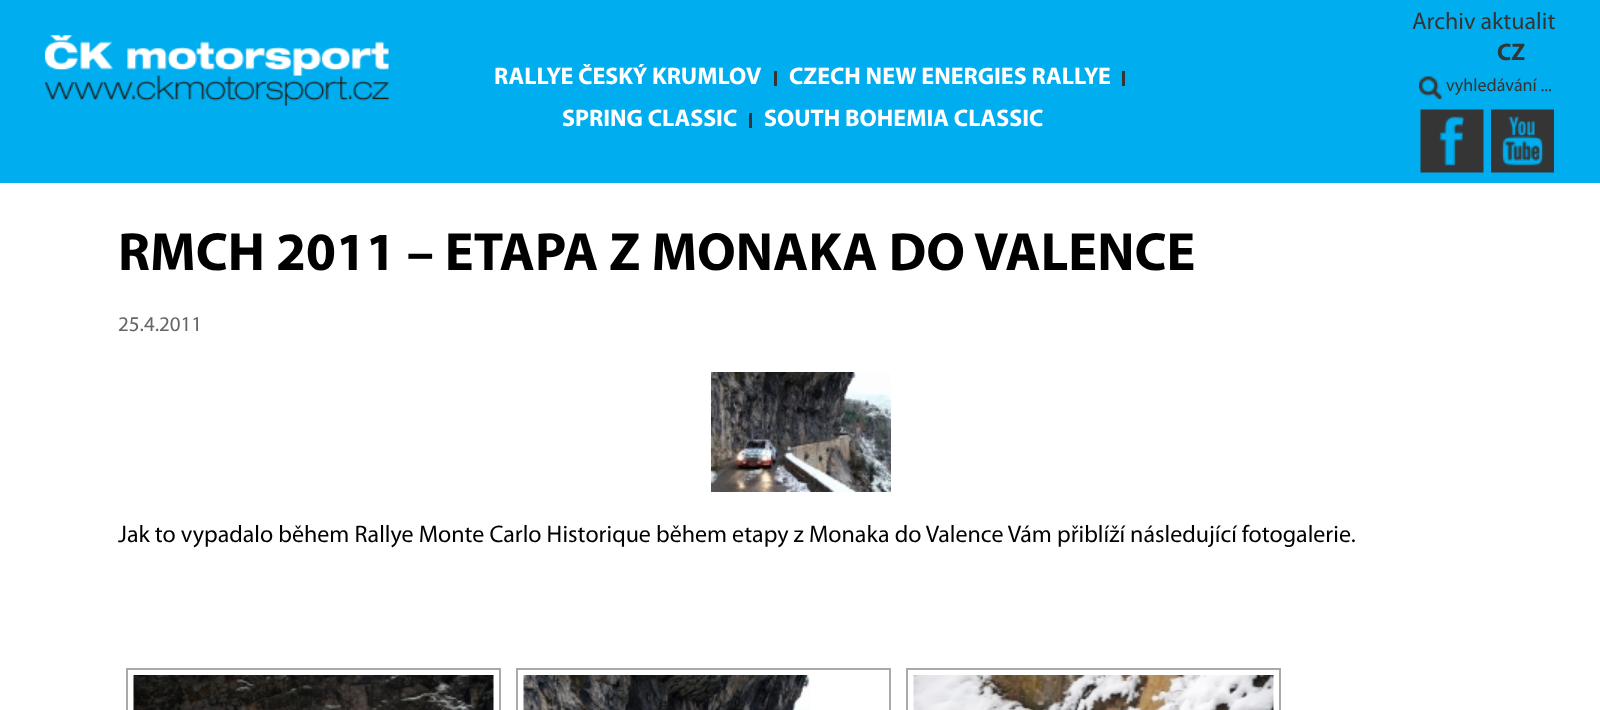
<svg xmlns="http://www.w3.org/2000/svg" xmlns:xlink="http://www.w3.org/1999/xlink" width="1600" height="710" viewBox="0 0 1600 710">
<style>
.cls-1{font:bold 24px Myriad;fill:#ffffff}
.cls-2{font:24px Myriad;fill:#353535}
.cls-3{font:bold 24px Myriad;fill:#353535}
.cls-4{font:18px Myriad;fill:#353535}
.cls-5{font:bold 54px Myriad;fill:#000000}
.cls-6{font:21px Myriad;fill:#666666}
.cls-7{font:24px Myriad;fill:#000000}
</style>
<rect width="100%" height="100%" fill="#ffffff"/>
<rect fill="#00aeef" x="0" y="0" width="1600" height="183"/>
<image xlink:href="image0.png" x="45" y="35" width="344" height="71"/>
<rect fill="#353535" x="774" y="71" width="3" height="15"/>
<rect fill="#353535" x="1122" y="71" width="3" height="15"/>
<rect fill="#353535" x="749" y="113" width="3" height="15"/>
<image xlink:href="image1.png" x="1419" y="76" width="23" height="23"/>
<image xlink:href="image2.png" x="1420" y="109" width="64" height="64"/>
<image xlink:href="image3.png" x="1491" y="109" width="63" height="64"/>
<image xlink:href="image4.png" x="711" y="372" width="180" height="120"/>
<rect fill="none" stroke="#a9a9a9" stroke-width="2" x="127" y="669" width="373" height="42"/>
<image xlink:href="image5.png" x="133" y="675" width="361" height="35"/>
<rect fill="none" stroke="#a9a9a9" stroke-width="2" x="517" y="669" width="373" height="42"/>
<image xlink:href="image6.png" x="523" y="675" width="288" height="35"/>
<rect fill="none" stroke="#a9a9a9" stroke-width="2" x="907" y="669" width="373" height="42"/>
<image xlink:href="image7.png" x="913" y="675" width="361" height="35"/>
<text class="cls-1" x="494" y="84">RALLYE ČESKÝ KRUMLOV</text>
<text class="cls-1" x="789" y="84">CZECH NEW ENERGIES RALLYE</text>
<text class="cls-1" x="562" y="126">SPRING CLASSIC</text>
<text class="cls-1" x="764" y="126">SOUTH BOHEMIA CLASSIC</text>
<text class="cls-2" x="1412" y="29">Archiv aktualit</text>
<text class="cls-3" x="1497" y="60">CZ</text>
<text class="cls-4" x="1446" y="91">vyhledávání ...</text>
<text class="cls-5" x="118" y="270">RMCH 2011 – ETAPA Z MONAKA DO VALENCE</text>
<text class="cls-6" x="118" y="331">25.4.2011</text>
<text class="cls-7" x="118" y="542">Jak to vypadalo během Rallye Monte Carlo Historique během etapy z Monaka do Valence Vám přiblíží následující fotogalerie.</text>
</svg>
